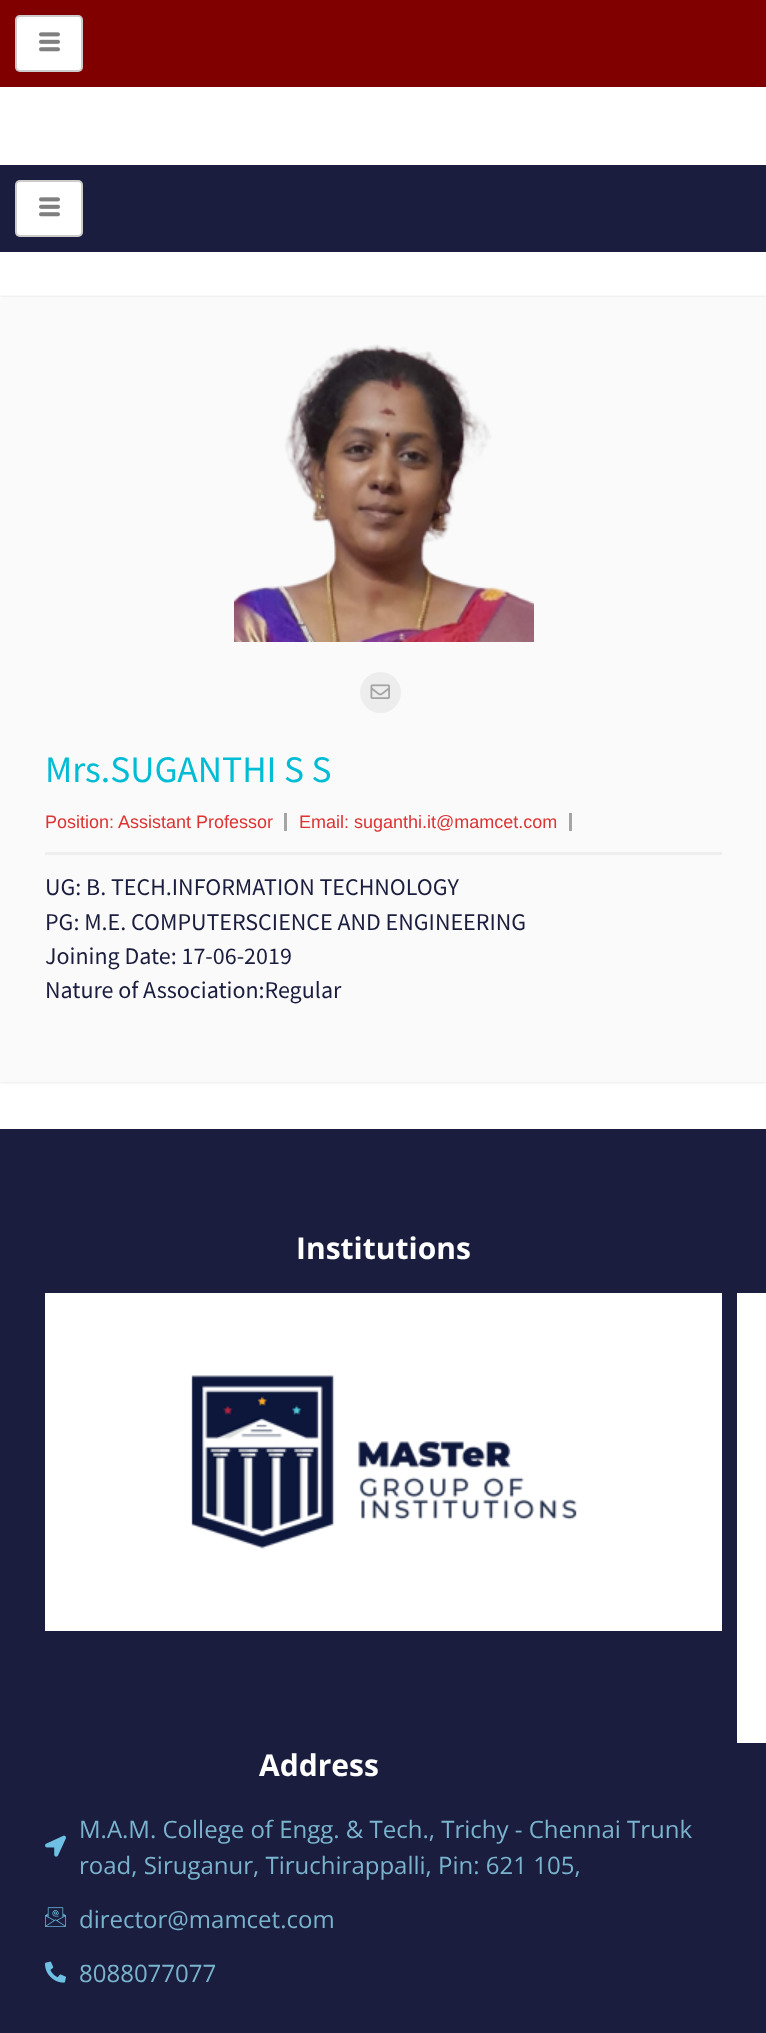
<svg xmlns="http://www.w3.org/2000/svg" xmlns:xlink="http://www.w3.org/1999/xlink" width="766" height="2033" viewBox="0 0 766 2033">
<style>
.cls-1{font:37.5px Source Sans Pro;fill:#00bcd4}
.cls-2{font:18px Liberation Sans;fill:#dd3333}
.cls-3{font:24px Source Sans Pro;fill:#1a1d3d}
.cls-4{font:bold 30px Open Sans;fill:#ffffff}
.cls-5{font:24px Open Sans;fill:#7ab3ce}
</style>
<rect width="100%" height="100%" fill="#ffffff"/>
<rect fill="#800000" x="0" y="0" width="766" height="87"/>
<rect fill="#ffffff" x="15" y="15" width="68" height="57" rx="5"/>
<rect fill="none" stroke="#000000" stroke-opacity="0.2" stroke-width="2" x="16" y="16" width="66" height="55" rx="4"/>
<image xlink:href="image0.png" x="39" y="32" width="21" height="20"/>
<rect fill="#1a1d3d" x="0" y="165" width="766" height="87"/>
<rect fill="#ffffff" x="15" y="180" width="68" height="57" rx="5"/>
<rect fill="none" stroke="#000000" stroke-opacity="0.2" stroke-width="2" x="16" y="181" width="66" height="55" rx="4"/>
<image xlink:href="image0.png" x="39" y="197" width="21" height="20"/>
<rect fill="#000000" fill-opacity="0.15" filter="blur(1.5px)" x="0" y="297" width="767" height="785"/>
<rect fill="#fafafa" x="0" y="297" width="766" height="785"/>
<image xlink:href="image1.png" x="234" y="344" width="300" height="298"/>
<circle fill="#ededed" cx="380.5" cy="692.5" r="20.5"/>
<image xlink:href="image2.png" x="370" y="684" width="20" height="15"/>
<rect fill="#eeeeee" x="45" y="852" width="677" height="3"/>
<rect fill="#a5a5a5" x="284" y="813" width="3" height="18"/>
<rect fill="#a5a5a5" x="569" y="813" width="3" height="18"/>
<rect fill="#1a1d3d" x="0" y="1129" width="766" height="904"/>
<rect fill="#ffffff" x="45" y="1293" width="677" height="338"/>
<image xlink:href="image3.png" x="191" y="1375" width="386" height="174"/>
<rect fill="#ffffff" x="737" y="1293" width="29" height="450"/>
<image xlink:href="image4.png" x="45" y="1835" width="21" height="22"/>
<image xlink:href="image5.png" x="45" y="1907" width="21" height="20"/>
<image xlink:href="image6.png" x="45" y="1961" width="21" height="22"/>
<text class="cls-1" x="45" y="782">Mrs.SUGANTHI S S</text>
<text class="cls-2" x="45" y="828">Position:</text>
<text class="cls-2" x="118" y="828">Assistant Professor</text>
<text class="cls-2" x="299" y="828">Email: suganthi.it@mamcet.com</text>
<text class="cls-3"><tspan x="45" y="895">UG: B. TECH.INFORMATION TECHNOLOGY</tspan><tspan x="45" y="930">PG: M.E. COMPUTERSCIENCE AND ENGINEERING</tspan><tspan x="45" y="964">Joining Date: 17-06-2019</tspan><tspan x="45" y="998">Nature of Association:Regular</tspan></text>
<text class="cls-4" x="296" y="1259">Institutions</text>
<text class="cls-4" x="259" y="1776">Address</text>
<text class="cls-5"><tspan x="79" y="1838">M.A.M. College of Engg. &amp; Tech., Trichy - Chennai Trunk</tspan><tspan x="79" y="1874">road, Siruganur, Tiruchirappalli, Pin: 621 105,</tspan></text>
<text class="cls-5" x="79" y="1928">director@mamcet.com</text>
<text class="cls-5" x="79" y="1982">8088077077</text>
</svg>
